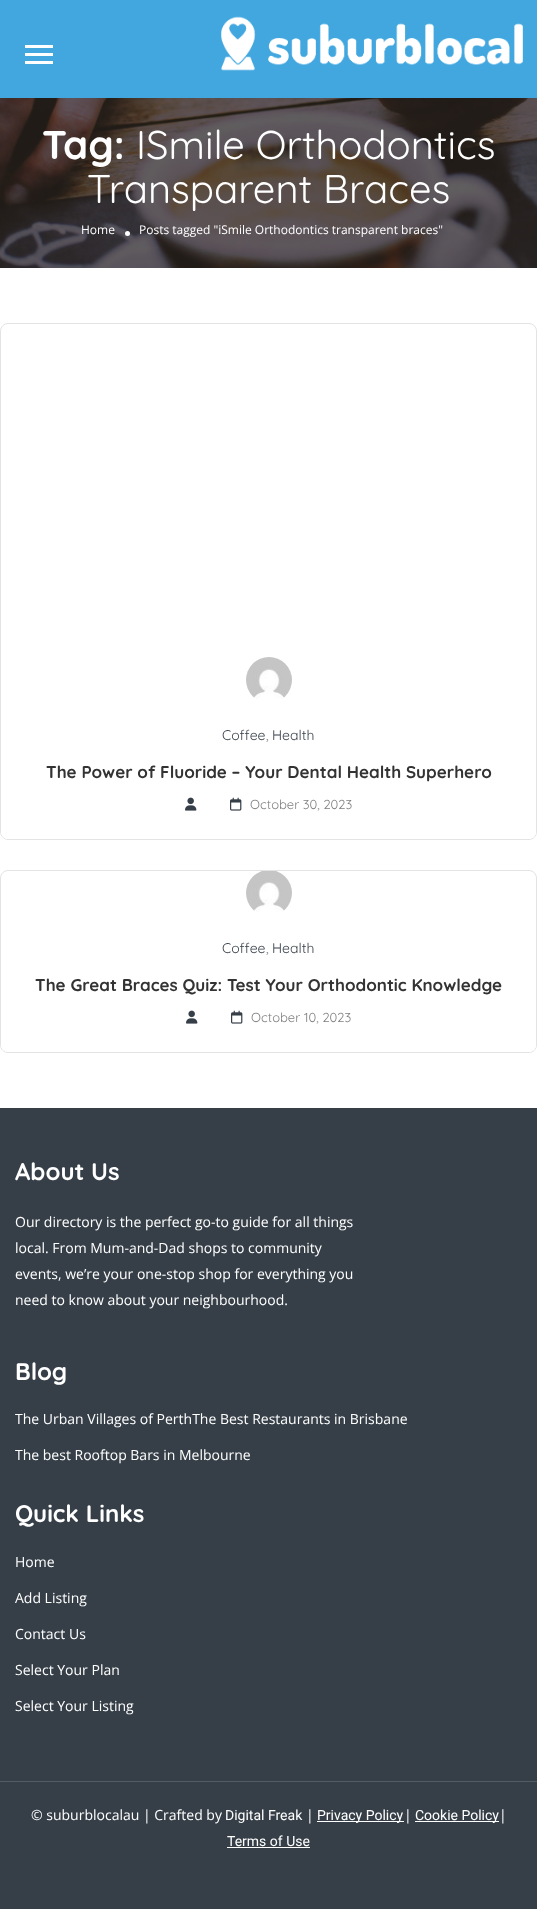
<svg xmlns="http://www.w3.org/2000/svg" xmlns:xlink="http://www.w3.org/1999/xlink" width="537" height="1925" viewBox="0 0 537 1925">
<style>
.cls-1{font:bold 40px Quicksand;fill:#ffffff}
.cls-2{font:40px Quicksand;fill:#ffffff}
.cls-3{font:12px Open Sans;fill:#ffffff}
.cls-4{font:14px Quicksand;fill:#363f48}
.cls-5{font:14px Quicksand;fill:#7f7f7f}
.cls-6{font:bold 17px Quicksand;fill:#333333}
.cls-7{font:13px Quicksand;fill:#7f7f7f}
.cls-8{font:bold 24px Quicksand;fill:#ffffff}
.cls-9{font:14px Open Sans;fill:#ffffff}
.cls-10{font:14px Roboto;fill:#ffffff}
</style>
<rect width="100%" height="100%" fill="#ffffff"/>
<rect fill="#42a7df" x="0" y="0" width="537" height="98"/>
<rect fill="#ffffff" x="25" y="45" width="28" height="3"/>
<rect fill="#ffffff" x="25" y="53" width="28" height="3"/>
<rect fill="#ffffff" x="25" y="61" width="28" height="3"/>
<image xlink:href="image0.png" x="221" y="16" width="302" height="55"/>
<image xlink:href="image1.png" x="0" y="98" width="537" height="170"/>
<circle fill="#ffffff" cx="127.5" cy="233.5" r="2.5"/>
<rect fill="none" stroke="#e3e3e3" x="0.5" y="323.5" width="536" height="516" rx="7.5"/>
<path fill="#ffffff" d="M1 680H536V832C536 836 533 839 529 839H8C4 839 1 836 1 832Z"/>
<image xlink:href="image2.png" x="246" y="657" width="46" height="42"/>
<image xlink:href="image3.png" x="185" y="797" width="12" height="14"/>
<image xlink:href="image4.png" x="230" y="797" width="12" height="14"/>
<rect fill="none" stroke="#e3e3e3" x="0.5" y="870.5" width="536" height="182" rx="7.5"/>
<path fill="#ffffff" d="M1 893H536V1045C536 1049 533 1052 529 1052H8C4 1052 1 1049 1 1045Z"/>
<image xlink:href="image5.png" x="246" y="871" width="46" height="41"/>
<image xlink:href="image3.png" x="186" y="1010" width="12" height="14"/>
<image xlink:href="image4.png" x="231" y="1010" width="12" height="14"/>
<rect fill="#363f48" x="0" y="1108" width="537" height="801"/>
<rect fill="#545c63" x="0" y="1781" width="537" height="1"/>
<rect fill="#ffffff" x="317" y="1821" width="87" height="1"/>
<rect fill="#ffffff" x="415" y="1821" width="84" height="1"/>
<rect fill="#ffffff" x="227" y="1847" width="83" height="1"/>
<text class="cls-1" x="42" y="159">Tag:</text>
<text class="cls-2" x="136" y="159">ISmile Orthodontics</text>
<text class="cls-2" x="87" y="203">Transparent Braces</text>
<text class="cls-3" x="81" y="234">Home</text>
<text class="cls-3" x="139" y="234">Posts tagged "iSmile Orthodontics transparent braces"</text>
<text class="cls-4" x="222" y="740">Coffee</text>
<text class="cls-5" x="266" y="740">,</text>
<text class="cls-4" x="272" y="740">Health</text>
<text class="cls-6" x="46" y="778">The Power of Fluoride – Your Dental Health Superhero</text>
<text class="cls-7" x="250" y="809">October 30, 2023</text>
<text class="cls-4" x="222" y="953">Coffee</text>
<text class="cls-5" x="266" y="953">,</text>
<text class="cls-4" x="272" y="953">Health</text>
<text class="cls-6" x="35" y="991">The Great Braces Quiz: Test Your Orthodontic Knowledge</text>
<text class="cls-7" x="251" y="1022">October 10, 2023</text>
<text class="cls-8" x="15" y="1180">About Us</text>
<text class="cls-9"><tspan x="15" y="1227">Our directory is the perfect go-to guide for all things</tspan><tspan x="15" y="1253">local. From Mum-and-Dad shops to community</tspan><tspan x="15" y="1279">events, we’re your one-stop shop for everything you</tspan><tspan x="15" y="1305">need to know about your neighbourhood.</tspan></text>
<text class="cls-8" x="15" y="1380">Blog</text>
<text class="cls-9" x="15" y="1424">The Urban Villages of PerthThe Best Restaurants in Brisbane</text>
<text class="cls-9" x="15" y="1460">The best Rooftop Bars in Melbourne</text>
<text class="cls-8" x="15" y="1522">Quick Links</text>
<text class="cls-9" x="15" y="1567">Home</text>
<text class="cls-9" x="15" y="1603">Add Listing</text>
<text class="cls-9" x="15" y="1639">Contact Us</text>
<text class="cls-9" x="15" y="1675">Select Your Plan</text>
<text class="cls-9" x="15" y="1711">Select Your Listing</text>
<text class="cls-9" x="31" y="1820">© suburblocalau | Crafted by</text>
<text class="cls-10" x="225" y="1820">Digital Freak</text>
<text class="cls-9" x="306" y="1820">|</text>
<text class="cls-10" x="317" y="1820">Privacy Policy</text>
<text class="cls-9" x="404" y="1820">|</text>
<text class="cls-10" x="415" y="1820">Cookie Policy</text>
<text class="cls-9" x="499" y="1820">|</text>
<text class="cls-10" x="227" y="1846">Terms of Use</text>
</svg>
